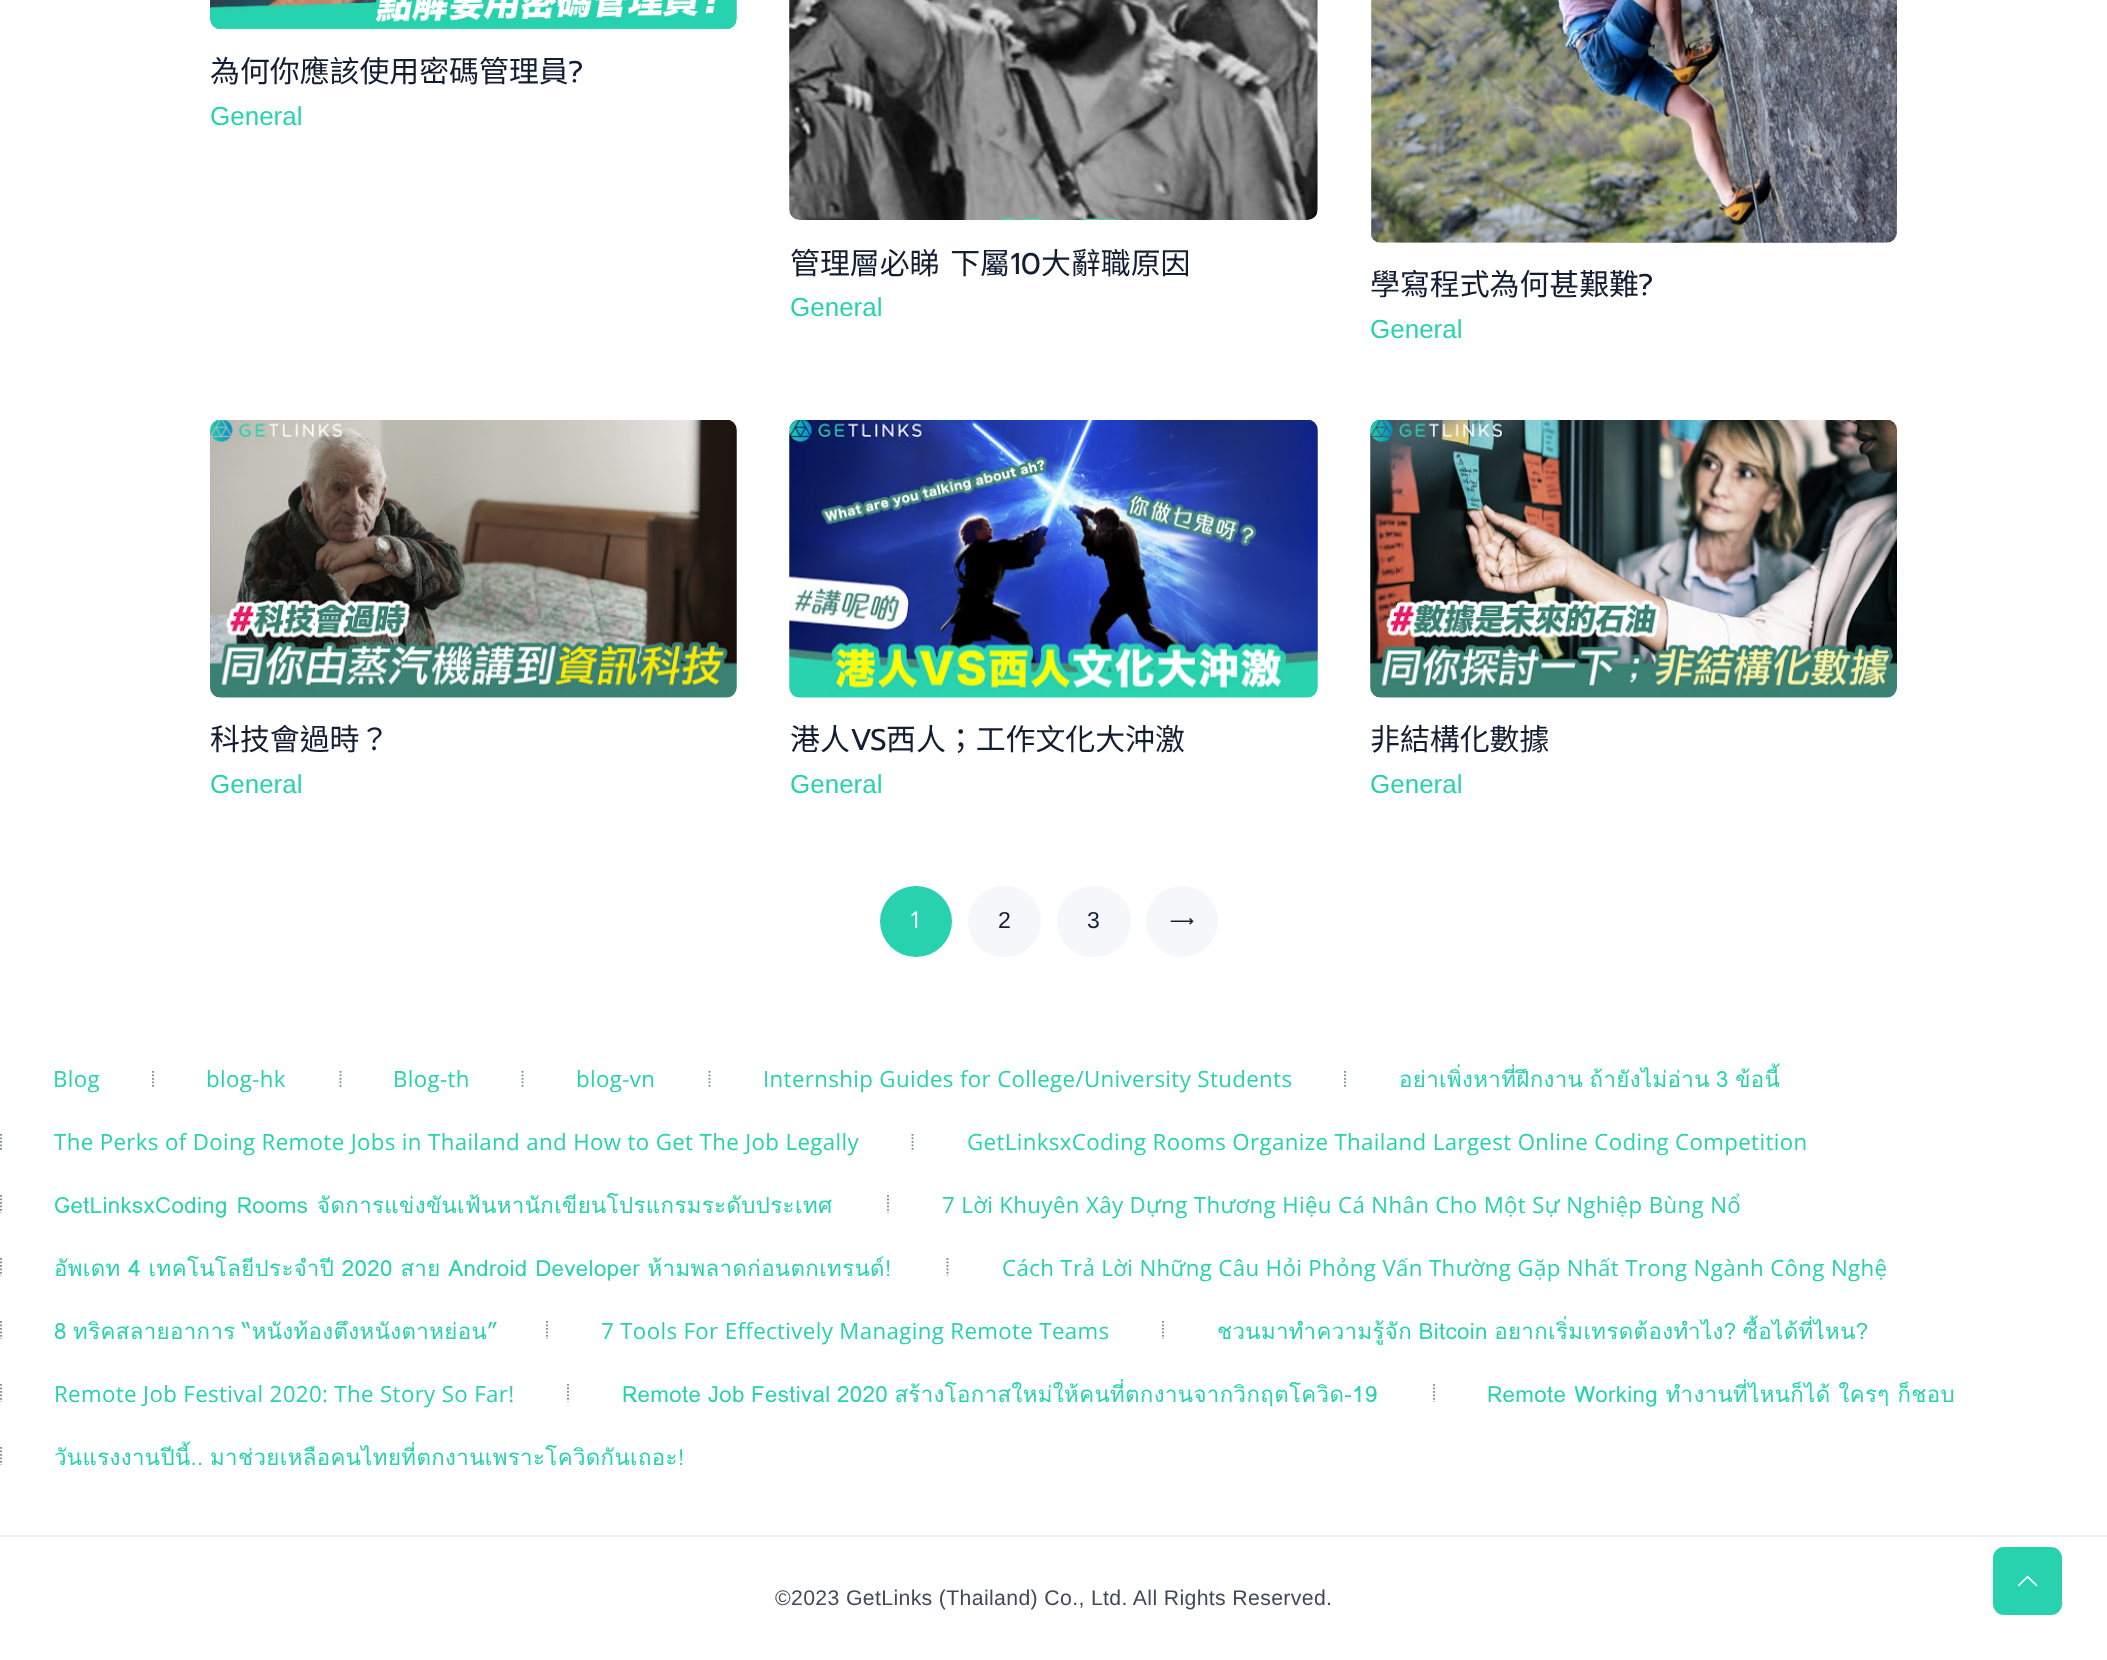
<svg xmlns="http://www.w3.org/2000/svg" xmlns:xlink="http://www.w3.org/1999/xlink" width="2107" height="1660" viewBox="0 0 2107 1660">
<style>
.cls-1{font:29.9px Noto Sans CJK HK;fill:#141e32}
.cls-2{font:29.9px Prompt;fill:#141e32}
.cls-3{font:26px Liberation Sans;fill:#28d2af}
.cls-4{font:23px Open Sans;letter-spacing:0.35px;fill:#ffffff}
.cls-5{font:23px Liberation Sans;letter-spacing:0.35px;fill:#141e32}
.cls-6{font:22.3px Open Sans;letter-spacing:0.35px;fill:#28d2af}
.cls-7{font:22.3px Loma;letter-spacing:0.35px;fill:#28d2af}
.cls-8{font:21.25px Liberation Sans;letter-spacing:0.35px;fill:#424a5a}
</style>
<rect width="100%" height="100%" fill="#ffffff"/>
<image xlink:href="image0.png" x="210" y="0" width="527" height="29"/>
<image xlink:href="image1.png" x="789" y="0" width="529" height="220"/>
<image xlink:href="image2.png" x="1371" y="0" width="526" height="243"/>
<image xlink:href="image3.png" x="210" y="420" width="527" height="278"/>
<image xlink:href="image4.png" x="789" y="420" width="529" height="278"/>
<image xlink:href="image5.png" x="1370" y="420" width="527" height="278"/>
<rect fill="#28d2af" x="880" y="886" width="72" height="71" rx="35.5"/>
<rect fill="#f5f7fa" x="968" y="886" width="73" height="71" rx="35.5"/>
<rect fill="#f5f7fa" x="1057" y="886" width="74" height="71" rx="35.5"/>
<rect fill="#f5f7fa" x="1146" y="886" width="72" height="71" rx="35.5"/>
<image xlink:href="image6.png" x="1170" y="918" width="24" height="7"/>
<path fill="none" stroke="#788796" stroke-width="1.8" stroke-dasharray="1.75 1.75" d="M153 1071V1087"/>
<path fill="none" stroke="#788796" stroke-width="1.8" stroke-dasharray="1.75 1.75" d="M340.5 1071V1087"/>
<path fill="none" stroke="#788796" stroke-width="1.8" stroke-dasharray="1.75 1.75" d="M522.5 1071V1087"/>
<path fill="none" stroke="#788796" stroke-width="1.8" stroke-dasharray="1.75 1.75" d="M709.5 1071V1087"/>
<path fill="none" stroke="#788796" stroke-width="1.8" stroke-dasharray="1.75 1.75" d="M1345 1071V1087"/>
<path fill="none" stroke="#788796" stroke-width="1.8" stroke-dasharray="1.75 1.75" d="M1 1134V1150"/>
<path fill="none" stroke="#788796" stroke-width="1.8" stroke-dasharray="1.75 1.75" d="M912.5 1134V1150"/>
<path fill="none" stroke="#788796" stroke-width="1.8" stroke-dasharray="1.75 1.75" d="M1 1195V1213"/>
<path fill="none" stroke="#788796" stroke-width="1.8" stroke-dasharray="1.75 1.75" d="M888 1195V1213"/>
<path fill="none" stroke="#788796" stroke-width="1.8" stroke-dasharray="1.75 1.75" d="M1 1258V1276"/>
<path fill="none" stroke="#788796" stroke-width="1.8" stroke-dasharray="1.75 1.75" d="M947.5 1258V1276"/>
<path fill="none" stroke="#788796" stroke-width="1.8" stroke-dasharray="1.75 1.75" d="M1 1321V1339"/>
<path fill="none" stroke="#788796" stroke-width="1.8" stroke-dasharray="1.75 1.75" d="M547 1321V1339"/>
<path fill="none" stroke="#788796" stroke-width="1.8" stroke-dasharray="1.75 1.75" d="M1163 1321V1339"/>
<path fill="none" stroke="#788796" stroke-width="1.8" stroke-dasharray="1.75 1.75" d="M1 1384V1402"/>
<path fill="none" stroke="#788796" stroke-width="1.8" stroke-dasharray="1.75 1.75" d="M568 1384V1402"/>
<path fill="none" stroke="#788796" stroke-width="1.8" stroke-dasharray="1.75 1.75" d="M1434 1384V1402"/>
<path fill="none" stroke="#788796" stroke-width="1.8" stroke-dasharray="1.75 1.75" d="M1 1447V1465"/>
<rect fill="#edf2f7" x="0" y="1535" width="2107" height="2"/>
<rect fill="#28d2af" x="1993" y="1547" width="69" height="68" rx="11"/>
<image xlink:href="image7.png" x="2017" y="1575" width="21" height="12"/>
<text class="cls-1" x="210" y="82">為何你應該使用密碼管理員</text>
<text class="cls-2" x="568" y="82">?</text>
<text class="cls-3" x="210" y="125">General</text>
<text class="cls-1" x="790" y="274" word-spacing="4">管理層必睇 下屬</text>
<text class="cls-2" x="1010" y="274">10</text>
<text class="cls-1" x="1041" y="274">大辭職原因</text>
<text class="cls-3" x="790" y="316">General</text>
<text class="cls-1" x="1370" y="295">學寫程式為何甚艱難</text>
<text class="cls-2" x="1638" y="295">?</text>
<text class="cls-3" x="1370" y="338">General</text>
<text class="cls-1" x="210" y="750">科技會過時？</text>
<text class="cls-3" x="210" y="793">General</text>
<text class="cls-1" x="790" y="750">港人</text>
<text class="cls-2" x="850" y="750">VS</text>
<text class="cls-1" x="886" y="750">西人；工作文化大沖激</text>
<text class="cls-3" x="790" y="793">General</text>
<text class="cls-1" x="1370" y="750">非結構化數據</text>
<text class="cls-3" x="1370" y="793">General</text>
<text class="cls-4" x="909" y="928">1</text>
<text class="cls-5" x="998" y="928">2</text>
<text class="cls-5" x="1087" y="928">3</text>
<text class="cls-6" x="53" y="1087">Blog</text>
<text class="cls-6" x="206" y="1087">blog-hk</text>
<text class="cls-6" x="393" y="1087">Blog-th</text>
<text class="cls-6" x="576" y="1087">blog-vn</text>
<text class="cls-6" x="763" y="1087">Internship Guides for College/University Students</text>
<text class="cls-7" x="1399" y="1087" word-spacing="-1.5">อย่าเพิ่งหาที่ฝึกงาน ถ้ายังไม่อ่าน 3 ข้อนี้</text>
<text class="cls-6" x="54" y="1150">The Perks of Doing Remote Jobs in Thailand and How to Get The Job Legally</text>
<text class="cls-6" x="967" y="1150">GetLinksxCoding Rooms Organize Thailand Largest Online Coding Competition</text>
<text class="cls-7" x="54" y="1213" word-spacing="1">GetLinksxCoding Rooms จัดการแข่งขันเฟ้นหานักเขียนโปรแกรมระดับประเทศ</text>
<text class="cls-6" x="942" y="1213">7 Lời Khuyên Xây Dựng Thương Hiệu Cá Nhân Cho Một Sự Nghiệp Bùng Nổ</text>
<text class="cls-7" x="54" y="1276" word-spacing="-0.25">อัพเดท 4 เทคโนโลยีประจำปี 2020 สาย Android Developer ห้ามพลาดก่อนตกเทรนด์!</text>
<text class="cls-6" x="1002" y="1276">Cách Trả Lời Những Câu Hỏi Phỏng Vấn Thường Gặp Nhất Trong Ngành Công Nghệ</text>
<text class="cls-7" x="54" y="1339" word-spacing="-1.5">8 ทริคสลายอาการ “หนังท้องตึงหนังตาหย่อน”</text>
<text class="cls-6" x="601" y="1339">7 Tools For Effectively Managing Remote Teams</text>
<text class="cls-7" x="1217" y="1339" word-spacing="-1.5">ชวนมาทำความรู้จัก Bitcoin อยากเริ่มเทรดต้องทำไง? ซื้อได้ที่ไหน?</text>
<text class="cls-6" x="54" y="1402">Remote Job Festival 2020: The Story So Far!</text>
<text class="cls-7" x="622" y="1402" word-spacing="-1.5">Remote Job Festival 2020 สร้างโอกาสใหม่ให้คนที่ตกงานจากวิกฤตโควิด-19</text>
<text class="cls-7" x="1487" y="1402">Remote Working ทำงานที่ไหนก็ได้ ใครๆ ก็ชอบ</text>
<text class="cls-7" x="54" y="1465" word-spacing="-1.5">วันแรงงานปีนี้.. มาช่วยเหลือคนไทยที่ตกงานเพราะโควิดกันเถอะ!</text>
<text class="cls-8" x="775" y="1605">©2023 GetLinks (Thailand) Co., Ltd. All Rights Reserved.</text>
</svg>
